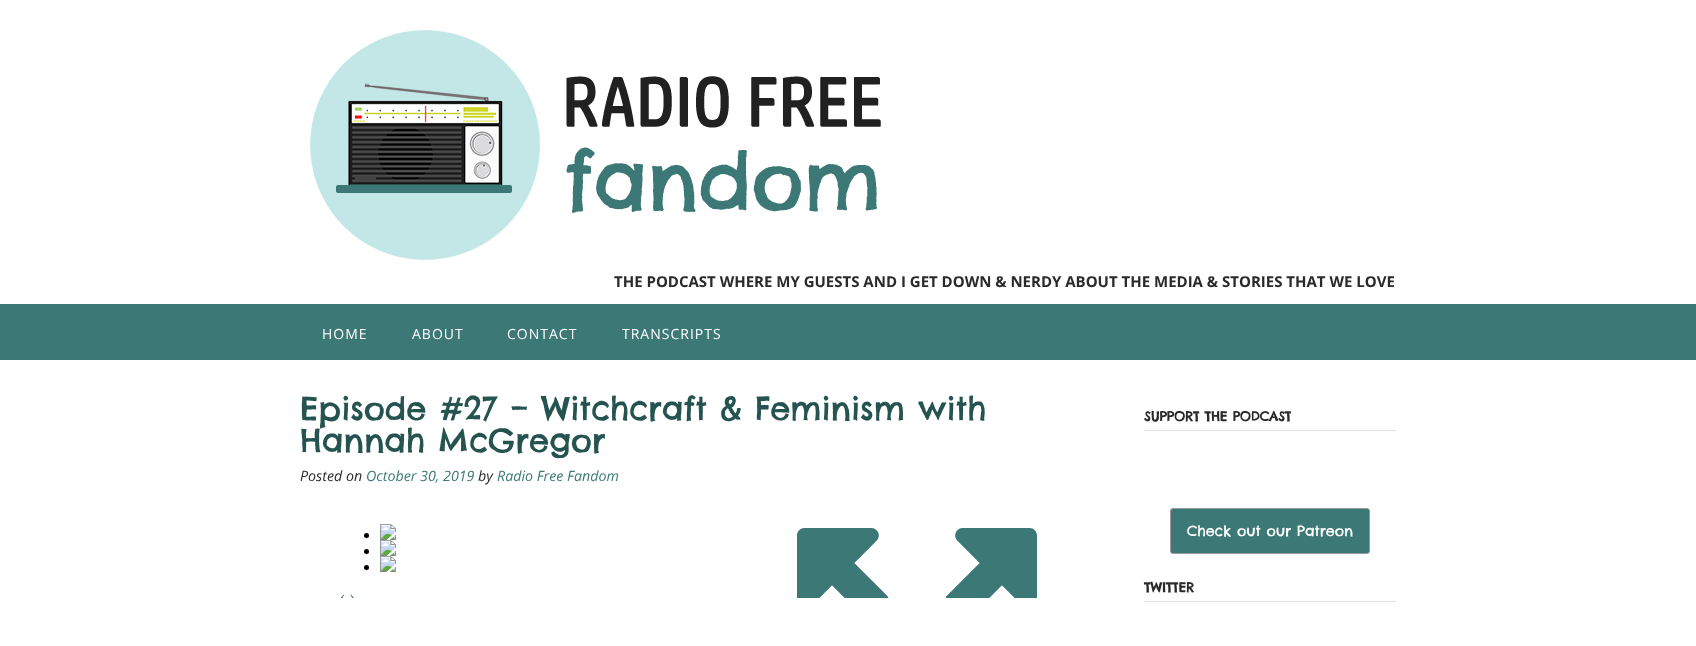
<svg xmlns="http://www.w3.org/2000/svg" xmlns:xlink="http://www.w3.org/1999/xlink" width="1696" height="646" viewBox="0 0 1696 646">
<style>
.cls-1{font:bold 15px Open Sans;fill:#2a2a2a}
.cls-2{font:14px Open Sans;letter-spacing:1px;fill:#ffffff}
.cls-3{font:32px Chelsea Market;fill:#255350}
.cls-4{font:italic 14.25px Open Sans;fill:#2a2a2a}
.cls-5{font:italic 14.25px Open Sans;fill:#3c7976}
.cls-6{font:bold 13px Chelsea Market;fill:#2a2a2a}
.cls-7{font:14.25px Chelsea Market;fill:#ffffff}
</style>
<rect width="100%" height="100%" fill="#ffffff"/>
<image xlink:href="image0.png" x="310" y="30" width="571" height="230"/>
<rect fill="#3c7976" x="0" y="304" width="1696" height="56"/>
<image xlink:href="image1.png" x="341" y="524" width="696" height="74"/>
<rect fill="#e0e0e0" x="1144" y="430" width="252" height="1"/>
<rect fill="#3c7976" stroke="#999999" x="1170.5" y="508.5" width="199" height="45" rx="2.5"/>
<rect fill="#e0e0e0" x="1144" y="601" width="252" height="1"/>
<text class="cls-1" x="614" y="287">THE PODCAST WHERE MY GUESTS AND I GET DOWN &amp; NERDY ABOUT THE MEDIA &amp; STORIES THAT WE LOVE</text>
<text class="cls-2" x="322" y="339">HOME</text>
<text class="cls-2" x="412" y="339">ABOUT</text>
<text class="cls-2" x="507" y="339">CONTACT</text>
<text class="cls-2" x="622" y="339">TRANSCRIPTS</text>
<text class="cls-3"><tspan x="300" y="420">Episode #27 – Witchcraft &amp; Feminism with</tspan><tspan x="300" y="452">Hannah McGregor</tspan></text>
<text class="cls-4" x="300" y="481">Posted on</text>
<text class="cls-5" x="366" y="481">October 30, 2019</text>
<text class="cls-4" x="478" y="481">by</text>
<text class="cls-5" x="497" y="481">Radio Free Fandom</text>
<text class="cls-6" x="1144" y="421">SUPPORT THE PODCAST</text>
<text class="cls-7" x="1187" y="536">Check out our Patreon</text>
<text class="cls-6" x="1144" y="592">TWITTER</text>
</svg>
